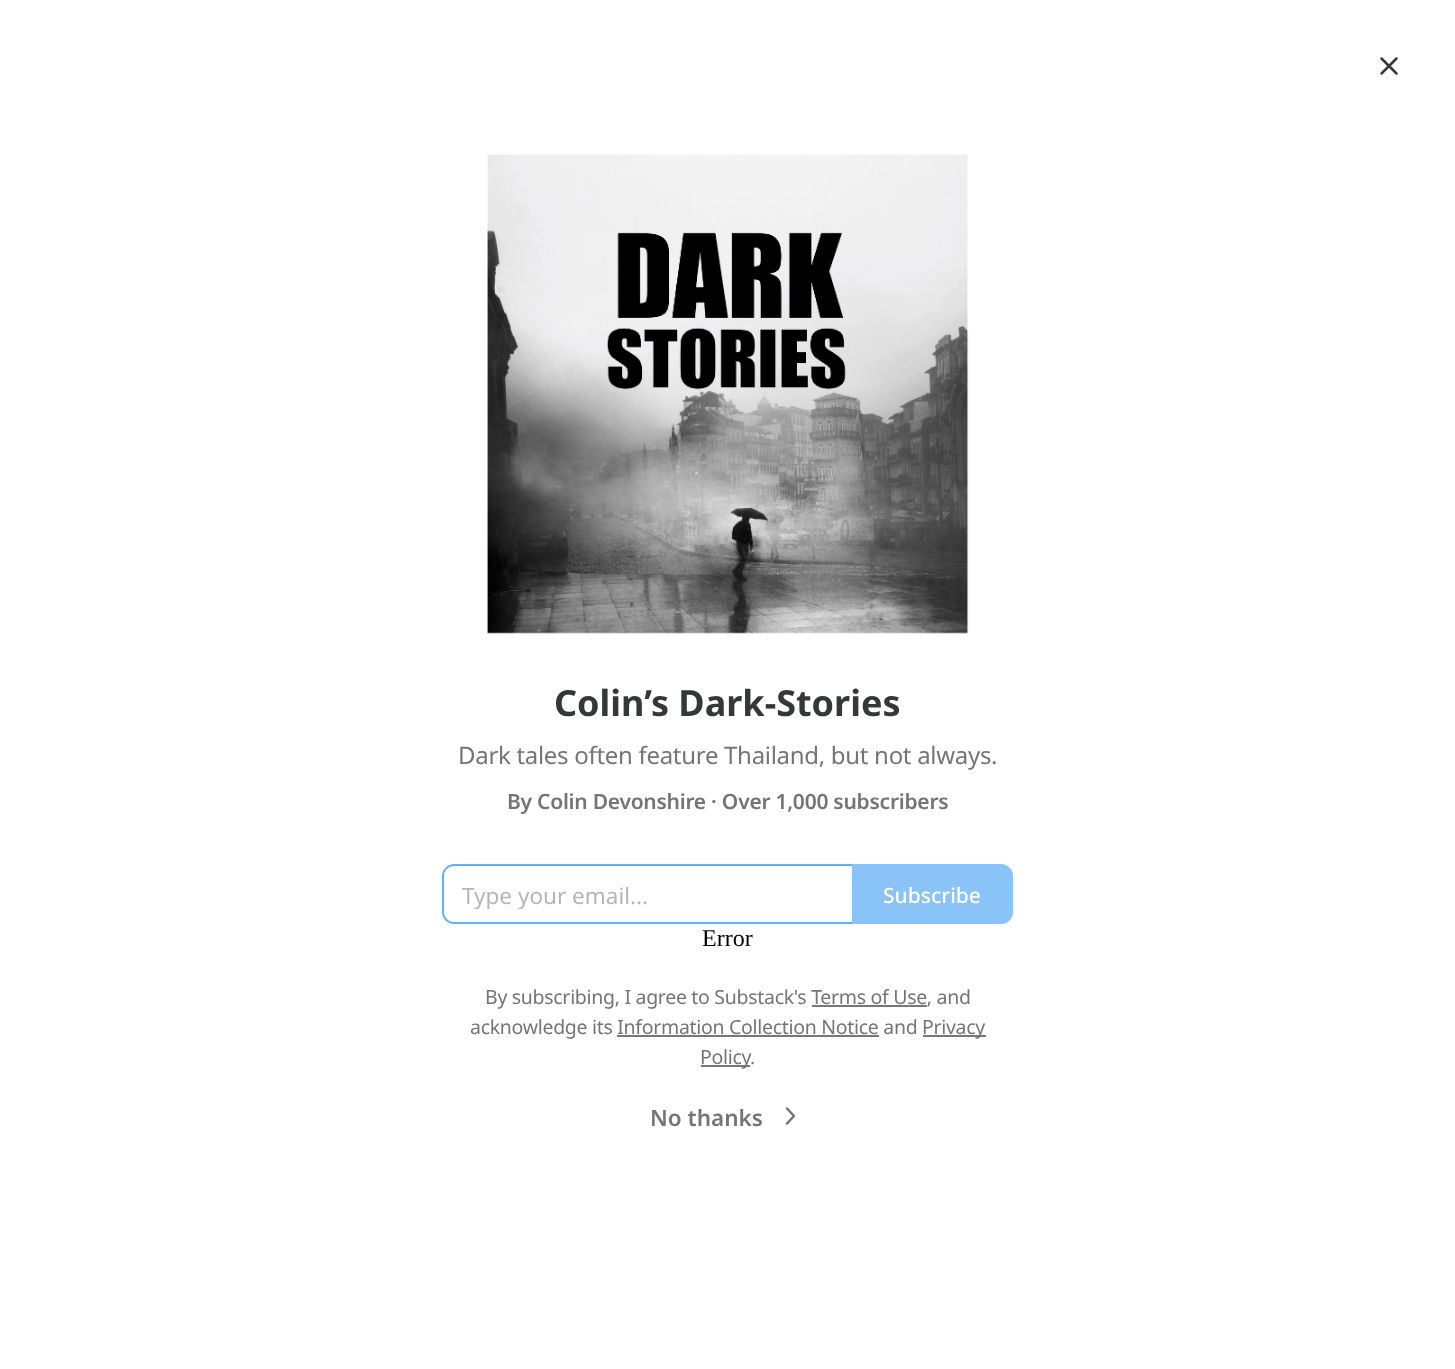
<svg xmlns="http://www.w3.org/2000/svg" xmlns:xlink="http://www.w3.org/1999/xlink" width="1455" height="1369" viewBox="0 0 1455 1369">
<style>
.cls-1{font:bold 36px Noto Sans;fill:#363737}
.cls-2{font:24px Noto Sans;letter-spacing:-0.3px;fill:#757575}
.cls-3{font:600 21px Noto Sans;letter-spacing:-0.25px;fill:#757575}
.cls-4{font:22.5px Noto Sans;fill:#b6b6b6}
.cls-5{font:500 21px Noto Sans;fill:#ffffff}
.cls-6{font:24px Liberation Serif;fill:#000000}
.cls-7{font:19.5px Noto Sans;letter-spacing:-0.3px;fill:#757575}
.cls-8{font:600 22.5px Noto Sans;fill:#757575}
</style>
<defs>
<clipPath id="clip1"><rect x="462" y="879" width="372" height="30"/></clipPath>
</defs>
<rect width="100%" height="100%" fill="#ffffff"/>
<path fill="none" stroke="#363737" stroke-width="2.5" stroke-linecap="round" stroke-linejoin="round" d="M1396.5 58.5L1381.5 73.5M1381.5 58.5L1396.5 73.5"/>
<image xlink:href="image0.png" x="487" y="154" width="482" height="480"/>
<path fill="#61aff4" fill-rule="evenodd" d="M454 864H852V924H454C448 924 442 919 442 912V876C442 869 448 864 454 864ZM454 866H852V922H454C449 922 444 918 444 912V876C444 870 449 866 454 866Z"/>
<path fill="#89c3f7" stroke="#89c3f7" stroke-width="2" d="M853 865H1001C1007 865 1012 870 1012 876V912C1012 918 1007 923 1001 923H853Z"/>
<rect fill="#777777" x="923" y="1035" width="63" height="2"/>
<rect fill="#777777" x="701" y="1065" width="49" height="2"/>
<path fill="none" stroke="#757575" stroke-width="2.5" stroke-linecap="round" stroke-linejoin="round" d="M787 1123.5L794 1116L787 1108.5"/>
<text class="cls-1" x="554" y="716">Colin’s Dark-Stories</text>
<text class="cls-2" x="458" y="764">Dark tales often feature Thailand, but not always.</text>
<text class="cls-3" x="507" y="809">By Colin Devonshire · Over 1,000 subscribers</text>
<g clip-path="url(#clip1)">
<text class="cls-4" x="462" y="904">Type your email...</text>
</g>
<text class="cls-5" x="883" y="903">Subscribe</text>
<text class="cls-6" x="702" y="946">Error</text>
<text class="cls-7" x="485" y="1004">By subscribing, I agree to Substack's Terms of Use, and</text>
<rect fill="#777777" x="812" y="1005" width="115" height="2"/>
<text class="cls-7" x="470" y="1034">acknowledge its Information Collection Notice and</text>
<text class="cls-7" x="922" y="1034">Privacy</text>
<rect fill="#777777" x="617" y="1035" width="262" height="2"/>
<text class="cls-7" x="700" y="1064">Policy</text>
<text class="cls-7" x="750" y="1064">.</text>
<text class="cls-8" x="650" y="1126">No thanks</text>
</svg>
